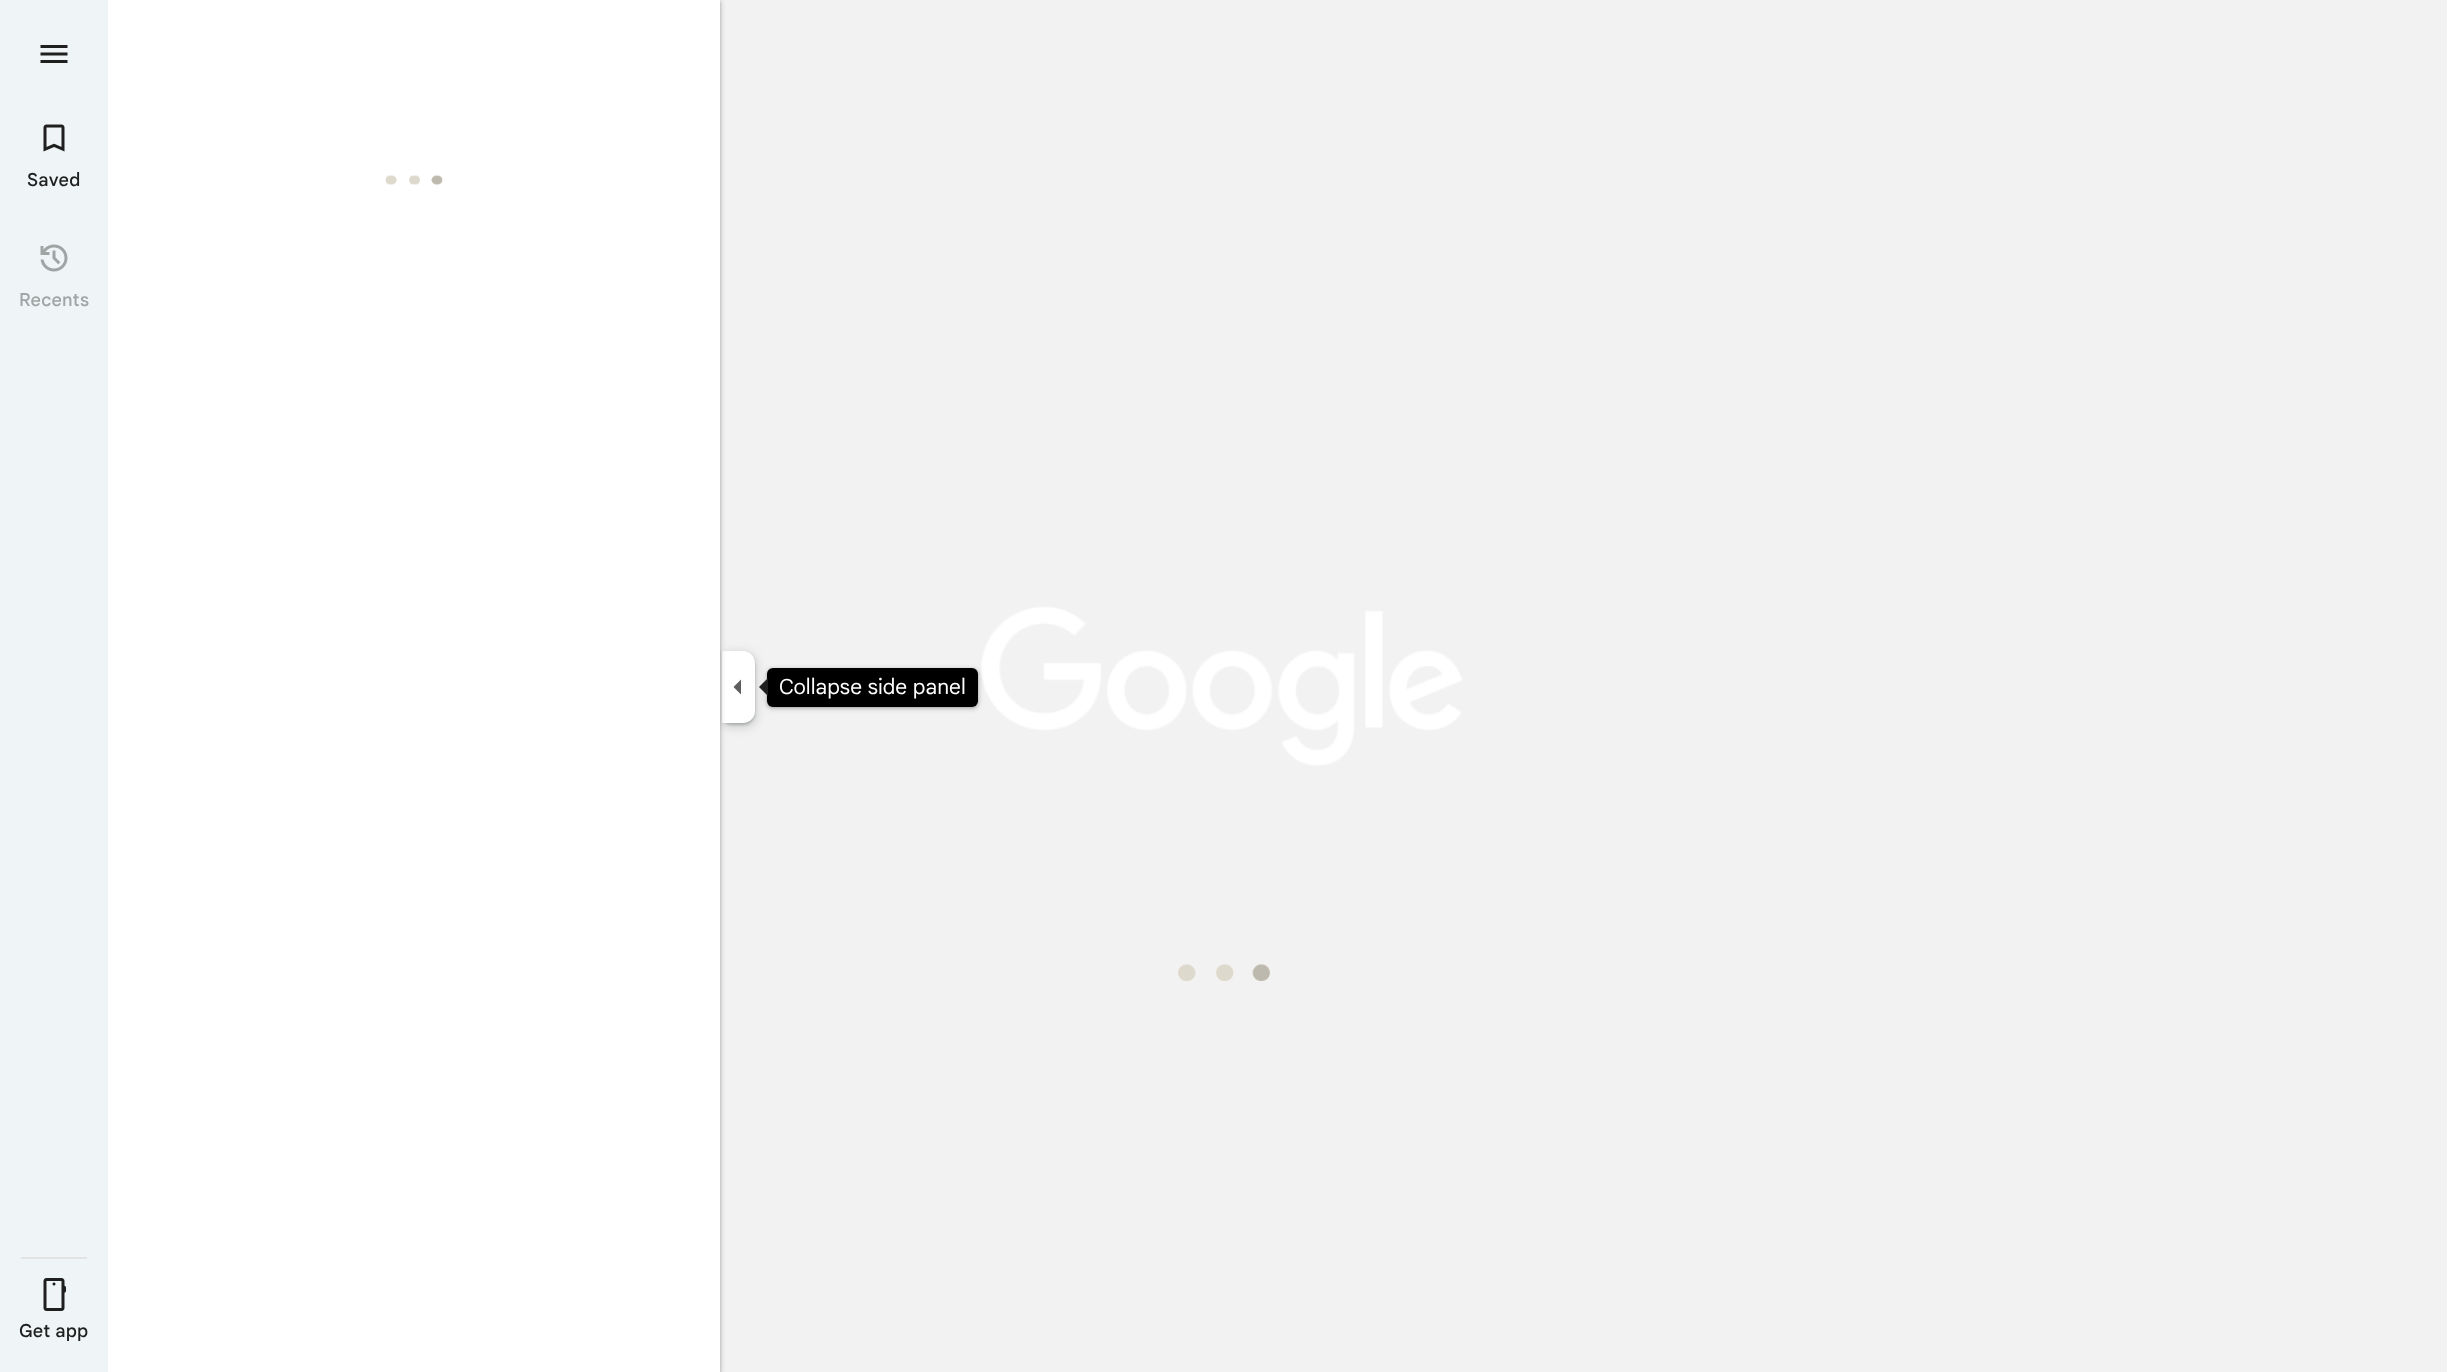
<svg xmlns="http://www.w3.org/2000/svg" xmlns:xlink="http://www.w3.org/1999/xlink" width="2447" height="1372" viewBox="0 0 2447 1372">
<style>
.cls-1{font:500 18px Google Sans;letter-spacing:0.25px;fill:#1f1f1f}
.cls-2{font:500 18px Google Sans;letter-spacing:0.25px;fill:#a0a4a4}
.cls-3{font:21px Google Sans;letter-spacing:0.1px;fill:#ffffff}
</style>
<rect width="100%" height="100%" fill="#f2f2f2"/>
<rect fill="#3c4043" fill-opacity="0.15" filter="blur(4.5px)" x="717" y="651" width="41" height="78" rx="15"/>
<rect fill="#3c4043" fill-opacity="0.3" filter="blur(1.5px)" x="720" y="653" width="35" height="72" rx="12"/>
<path fill="#ffffff" d="M720 651H743C749.5 651 755 656.5 755 663V711C755 717.5 749.5 723 743 723H720Z"/>
<rect fill="#e3e3e3" x="720" y="651" width="2" height="72"/>
<rect fill="#3c4043" fill-opacity="0.15" filter="blur(2px)" x="107" y="0" width="615" height="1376"/>
<rect fill="#3c4043" fill-opacity="0.3" filter="blur(1.5px)" x="108" y="2" width="612" height="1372"/>
<rect fill="#eff5f6" x="0" y="0" width="108" height="1372"/>
<image xlink:href="image0.png" x="40" y="45" width="28" height="18"/>
<image xlink:href="image1.png" x="43" y="124" width="22" height="28"/>
<image xlink:href="image2.png" x="40" y="244" width="28" height="28"/>
<rect fill="#e3e3e3" x="21" y="1257" width="66" height="2"/>
<image xlink:href="image3.png" x="43" y="1278" width="23" height="33"/>
<rect fill="#ffffff" x="108" y="0" width="612" height="1372"/>
<image xlink:href="image4.png" x="385" y="175" width="58" height="10"/>
<path fill="#5e5e5e" d="M741 694.5L733.5 687L741 679.5Z"/>
<image xlink:href="image5.png" x="981" y="606" width="482" height="160"/>
<rect fill="#3c4043" fill-opacity="0.15" filter="blur(2px)" x="765" y="668" width="215" height="42" rx="8"/>
<rect fill="#3c4043" fill-opacity="0.3" filter="blur(1.5px)" x="767" y="669" width="211" height="39" rx="6"/>
<rect fill="#000000" x="767" y="668" width="211" height="39" rx="6"/>
<path fill="#1f1f1f" d="M768 678V696L759 687Z"/>
<image xlink:href="image6.png" x="1178" y="964" width="92" height="17"/>
<text class="cls-1" x="27" y="186">Saved</text>
<text class="cls-2" x="19" y="306">Recents</text>
<text class="cls-1" x="19" y="1337">Get app</text>
<text class="cls-3" x="779" y="694">Collapse side panel</text>
</svg>
